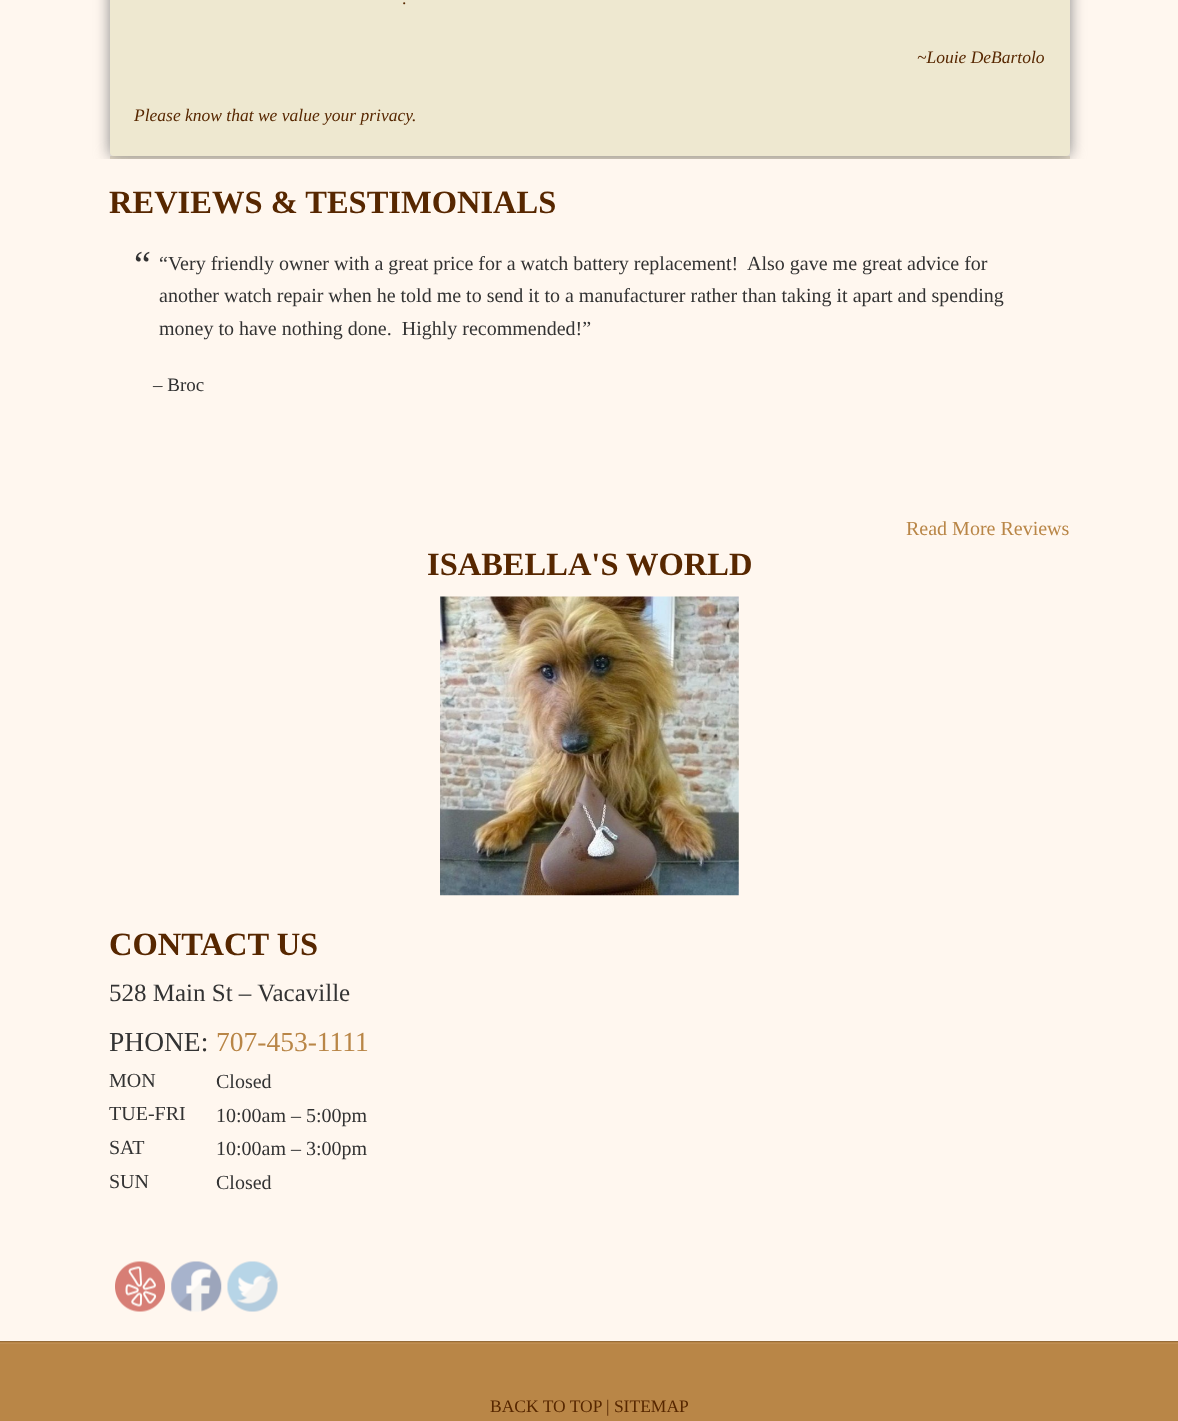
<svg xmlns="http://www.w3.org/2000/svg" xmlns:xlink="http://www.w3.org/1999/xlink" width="1178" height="1421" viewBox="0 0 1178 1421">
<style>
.cls-1{font:17.5px Liberation Serif;fill:#572700}
.cls-2{font:italic 17.5px Liberation Serif;fill:#572700}
.cls-3{font:bold 32.5px Liberation Serif;fill:#572700}
.cls-4{font:38px Liberation Serif;fill:#333333}
.cls-5{font:20px Liberation Serif;fill:#333333}
.cls-6{font:19px Liberation Serif;fill:#333333}
.cls-7{font:20px Liberation Serif;fill:#b98647}
.cls-8{font:25px Liberation Serif;fill:#333333}
.cls-9{font:27.5px Liberation Serif;fill:#333333}
.cls-10{font:27.5px Liberation Serif;fill:#b98647}
</style>
<defs>
<clipPath id="clip1"><rect x="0" y="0" width="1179" height="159"/></clipPath>
</defs>
<rect width="100%" height="100%" fill="#fff7ef"/>
<rect fill="#e7dbc6" x="110" y="156" width="960" height="3"/>
<g clip-path="url(#clip1)">
<rect fill="#888888" filter="blur(7.5px)" x="110" y="-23" width="960" height="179"/>
</g>
<rect fill="#eee8d0" x="110" y="-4" width="960" height="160" rx="4"/>
<image xlink:href="image0.png" x="440" y="596" width="299" height="300"/>
<image xlink:href="image1.png" x="115" y="1261" width="50" height="51"/>
<image xlink:href="image2.png" x="171" y="1261" width="51" height="51"/>
<image xlink:href="image3.png" x="227" y="1261" width="51" height="51"/>
<rect fill="#b98647" x="0" y="1342" width="1178" height="79"/>
<rect fill="#be8e54" x="0" y="1343" width="1178" height="1"/>
<rect fill="#946b39" x="0" y="1341" width="1178" height="1"/>
<text class="cls-1" x="402" y="4">.</text>
<text class="cls-2" x="917" y="63">~Louie DeBartolo</text>
<text class="cls-2" x="134" y="121">Please know that we value your privacy.</text>
<text class="cls-3" x="109" y="213">REVIEWS &amp; TESTIMONIALS</text>
<text class="cls-4" x="134" y="277">“</text>
<text class="cls-5" xml:space="preserve"><tspan x="159" y="270">“Very friendly owner with a great price for a watch battery replacement!  Also gave me great advice for</tspan><tspan x="159" y="302">another watch repair when he told me to send it to a manufacturer rather than taking it apart and spending</tspan><tspan x="159" y="335">money to have nothing done.  Highly recommended!”</tspan></text>
<text class="cls-6" x="153" y="391">– Broc</text>
<text class="cls-7" x="906" y="535">Read More Reviews</text>
<text class="cls-3" x="427" y="575">ISABELLA'S WORLD</text>
<text class="cls-3" x="109" y="955">CONTACT US</text>
<text class="cls-8" x="109" y="1001">528 Main St – Vacaville</text>
<text class="cls-9" x="109" y="1051">PHONE:</text>
<text class="cls-10" x="216" y="1051">707-453-1111</text>
<text class="cls-5" x="109" y="1087">MON</text>
<text class="cls-5" x="216" y="1088">Closed</text>
<text class="cls-5" x="109" y="1120">TUE-FRI</text>
<text class="cls-5" x="216" y="1122">10:00am – 5:00pm</text>
<text class="cls-5" x="109" y="1154">SAT</text>
<text class="cls-5" x="216" y="1155">10:00am – 3:00pm</text>
<text class="cls-5" x="109" y="1188">SUN</text>
<text class="cls-5" x="216" y="1189">Closed</text>
<text class="cls-1" x="490" y="1412">BACK TO TOP</text>
<text class="cls-1" x="606" y="1412">| SITEMAP</text>
</svg>
